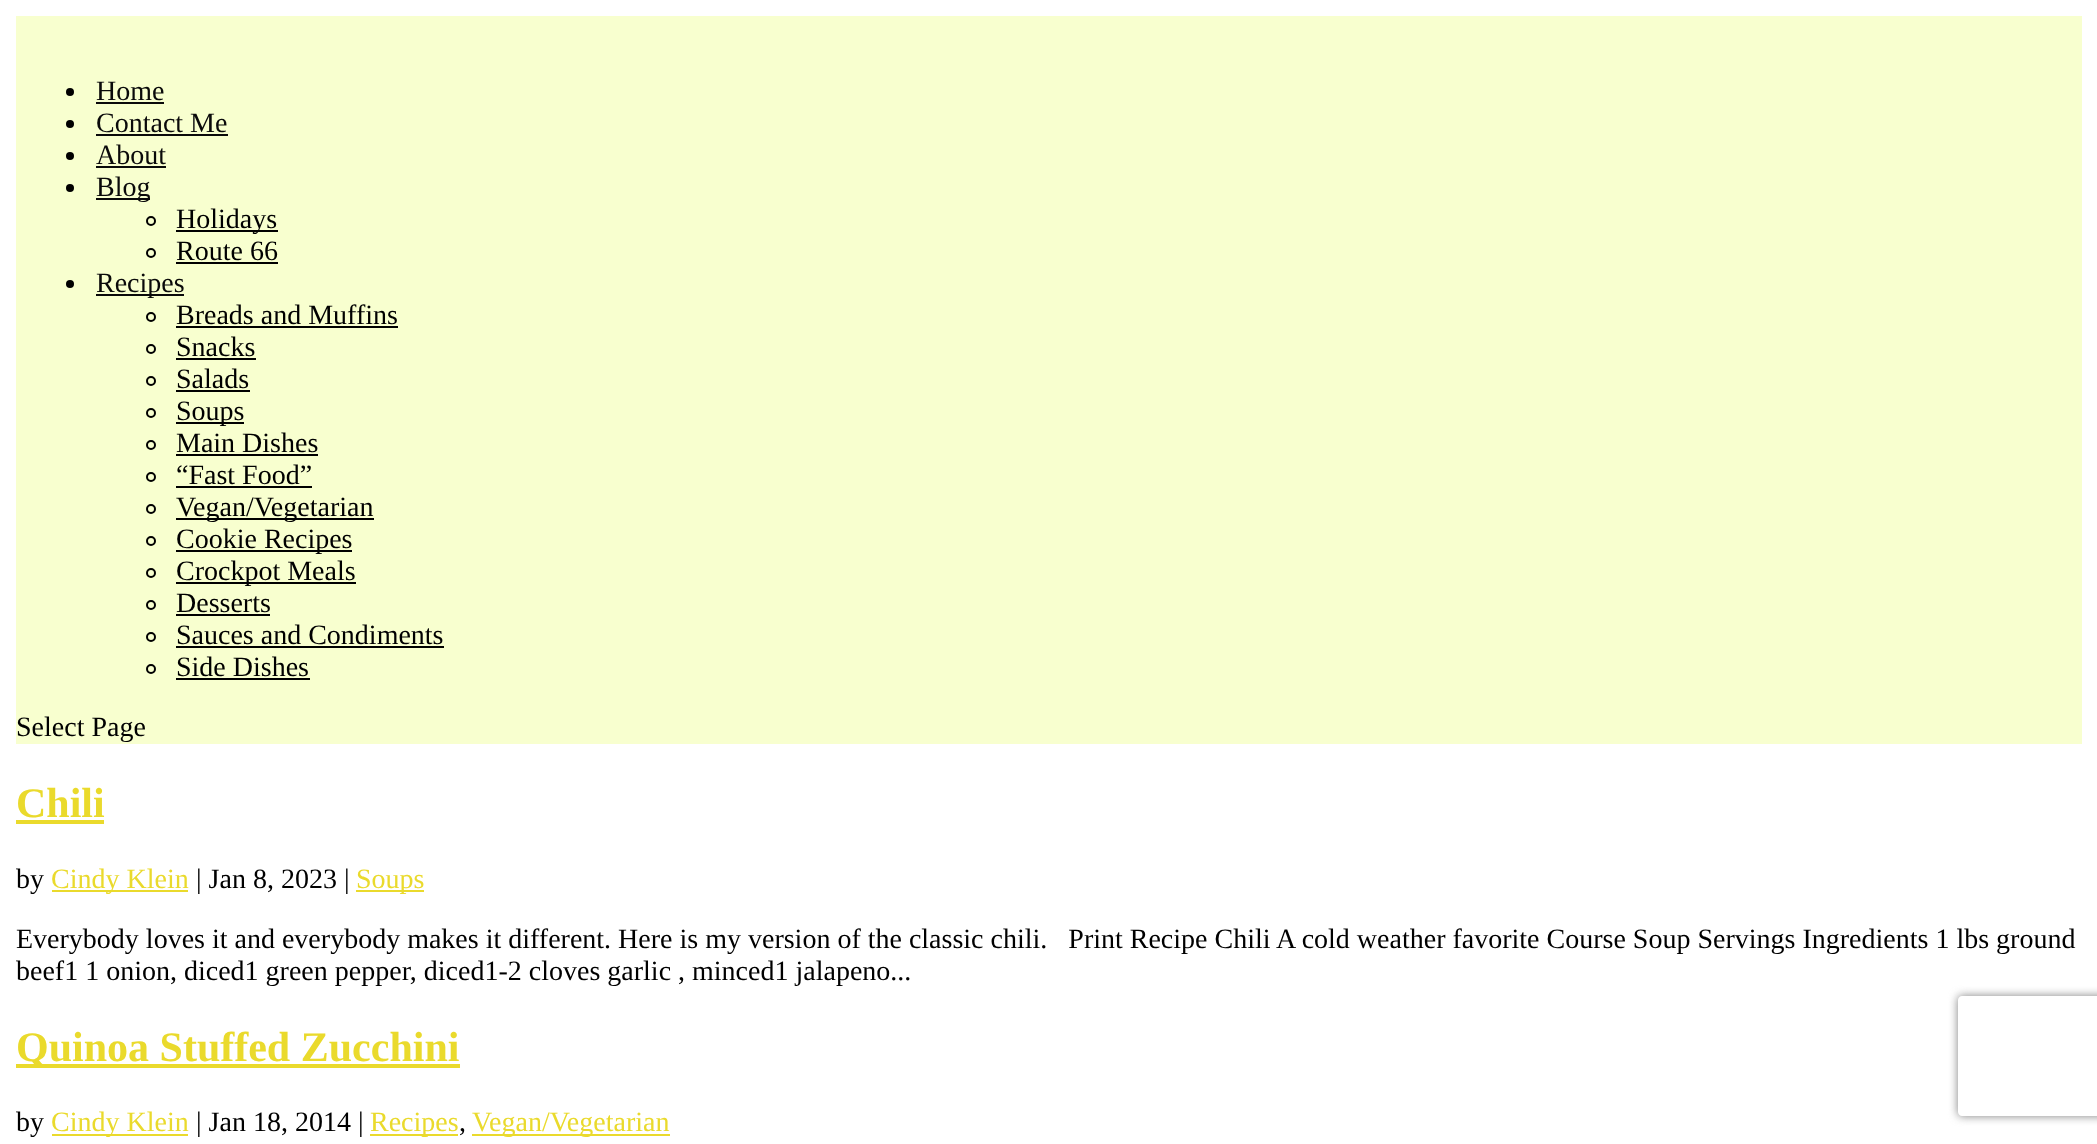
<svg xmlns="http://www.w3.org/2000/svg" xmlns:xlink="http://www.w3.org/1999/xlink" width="2097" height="1144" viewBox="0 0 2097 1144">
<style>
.cls-1{font:28px Liberation Serif;fill:#0a0a0a}
.cls-2{font:28px Liberation Serif;fill:#000000}
.cls-3{font:bold 42px Liberation Serif;fill:#eada2c}
.cls-4{font:28px Liberation Serif;fill:#eada2c}
</style>
<defs>
<clipPath id="clip1"><path d="M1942 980H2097V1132H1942ZM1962 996H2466C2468 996 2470 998 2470 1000V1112C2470 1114 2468 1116 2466 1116H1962C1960 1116 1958 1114 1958 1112V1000C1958 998 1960 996 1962 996Z" clip-rule="evenodd"/></clipPath>
</defs>
<rect width="100%" height="100%" fill="#ffffff"/>
<rect fill="#f8ffcf" x="16" y="16" width="2066" height="728"/>
<circle fill="#000000" cx="70" cy="92" r="4"/>
<rect fill="#0a0a0a" x="96" y="102" width="68" height="2"/>
<circle fill="#000000" cx="70" cy="124" r="4"/>
<rect fill="#0a0a0a" x="96" y="134" width="132" height="2"/>
<circle fill="#000000" cx="70" cy="156" r="4"/>
<rect fill="#0a0a0a" x="96" y="166" width="70" height="2"/>
<circle fill="#000000" cx="70" cy="188" r="4"/>
<rect fill="#0a0a0a" x="96" y="198" width="54" height="2"/>
<circle fill="none" stroke="#000000" stroke-width="2" cx="151" cy="221" r="4"/>
<rect fill="#000000" x="176" y="230" width="102" height="2"/>
<circle fill="none" stroke="#000000" stroke-width="2" cx="151" cy="253" r="4"/>
<rect fill="#000000" x="176" y="262" width="102" height="2"/>
<circle fill="#000000" cx="70" cy="284" r="4"/>
<rect fill="#0a0a0a" x="96" y="294" width="88" height="2"/>
<circle fill="none" stroke="#000000" stroke-width="2" cx="151" cy="317" r="4"/>
<rect fill="#000000" x="176" y="326" width="222" height="2"/>
<circle fill="none" stroke="#000000" stroke-width="2" cx="151" cy="349" r="4"/>
<rect fill="#000000" x="176" y="358" width="80" height="2"/>
<circle fill="none" stroke="#000000" stroke-width="2" cx="151" cy="381" r="4"/>
<rect fill="#000000" x="176" y="390" width="74" height="2"/>
<circle fill="none" stroke="#000000" stroke-width="2" cx="151" cy="413" r="4"/>
<rect fill="#000000" x="176" y="422" width="68" height="2"/>
<circle fill="none" stroke="#000000" stroke-width="2" cx="151" cy="445" r="4"/>
<rect fill="#000000" x="176" y="454" width="142" height="2"/>
<circle fill="none" stroke="#000000" stroke-width="2" cx="151" cy="477" r="4"/>
<rect fill="#000000" x="176" y="486" width="136" height="2"/>
<circle fill="none" stroke="#000000" stroke-width="2" cx="151" cy="509" r="4"/>
<rect fill="#000000" x="176" y="518" width="198" height="2"/>
<circle fill="none" stroke="#000000" stroke-width="2" cx="151" cy="541" r="4"/>
<rect fill="#000000" x="176" y="550" width="176" height="2"/>
<circle fill="none" stroke="#000000" stroke-width="2" cx="151" cy="573" r="4"/>
<rect fill="#000000" x="176" y="582" width="180" height="2"/>
<circle fill="none" stroke="#000000" stroke-width="2" cx="151" cy="605" r="4"/>
<rect fill="#000000" x="176" y="614" width="94" height="2"/>
<circle fill="none" stroke="#000000" stroke-width="2" cx="151" cy="637" r="4"/>
<rect fill="#000000" x="176" y="646" width="268" height="2"/>
<circle fill="none" stroke="#000000" stroke-width="2" cx="151" cy="669" r="4"/>
<rect fill="#000000" x="176" y="678" width="134" height="2"/>
<rect fill="#eada2c" x="16" y="820" width="88" height="4"/>
<rect fill="#eada2c" x="52" y="890" width="136" height="2"/>
<rect fill="#eada2c" x="356" y="890" width="68" height="2"/>
<rect fill="#eada2c" x="16" y="1064" width="444" height="4"/>
<rect fill="#eada2c" x="52" y="1134" width="136" height="2"/>
<rect fill="#eada2c" x="370" y="1134" width="88" height="2"/>
<rect fill="#eada2c" x="472" y="1134" width="198" height="2"/>
<g clip-path="url(#clip1)">
<rect fill="#808080" filter="blur(5px)" x="1958" y="996" width="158" height="120" rx="4"/>
</g>
<text class="cls-1"><tspan x="96" y="100">Home</tspan><tspan x="96" y="132">Contact Me</tspan><tspan x="96" y="164">About</tspan><tspan x="96" y="196">Blog</tspan></text>
<text class="cls-2"><tspan x="176" y="228">Holidays</tspan><tspan x="176" y="260">Route 66</tspan></text>
<text class="cls-1" x="96" y="292">Recipes</text>
<text class="cls-2"><tspan x="176" y="324">Breads and Muffins</tspan><tspan x="176" y="356">Snacks</tspan><tspan x="176" y="388">Salads</tspan><tspan x="176" y="420">Soups</tspan><tspan x="176" y="452">Main Dishes</tspan><tspan x="176" y="484">“Fast Food”</tspan><tspan x="176" y="516">Vegan/Vegetarian</tspan><tspan x="176" y="548">Cookie Recipes</tspan><tspan x="176" y="580">Crockpot Meals</tspan><tspan x="176" y="612">Desserts</tspan><tspan x="176" y="644">Sauces and Condiments</tspan><tspan x="176" y="676">Side Dishes</tspan></text>
<text class="cls-2" x="16" y="736">Select Page</text>
<text class="cls-3" x="16" y="817">Chili</text>
<text class="cls-2" x="16" y="888">by</text>
<text class="cls-4" x="51" y="888">Cindy Klein</text>
<text class="cls-2" x="196" y="888">| Jan 8, 2023 |</text>
<text class="cls-4" x="356" y="888">Soups</text>
<text class="cls-2" xml:space="preserve"><tspan x="16" y="948">Everybody loves it and everybody makes it different. Here is my version of the classic chili.   Print Recipe Chili A cold weather favorite Course Soup Servings Ingredients 1 lbs ground</tspan><tspan x="16" y="980">beef1 1 onion, diced1 green pepper, diced1-2 cloves garlic , minced1 jalapeno...</tspan></text>
<text class="cls-3" x="16" y="1061">Quinoa Stuffed Zucchini</text>
<text class="cls-2" x="16" y="1131">by</text>
<text class="cls-4" x="51" y="1131">Cindy Klein</text>
<text class="cls-2" x="196" y="1131">| Jan 18, 2014 |</text>
<text class="cls-4" x="370" y="1131">Recipes</text>
<text class="cls-2" x="459" y="1131">,</text>
<text class="cls-4" x="472" y="1131">Vegan/Vegetarian</text>
</svg>
